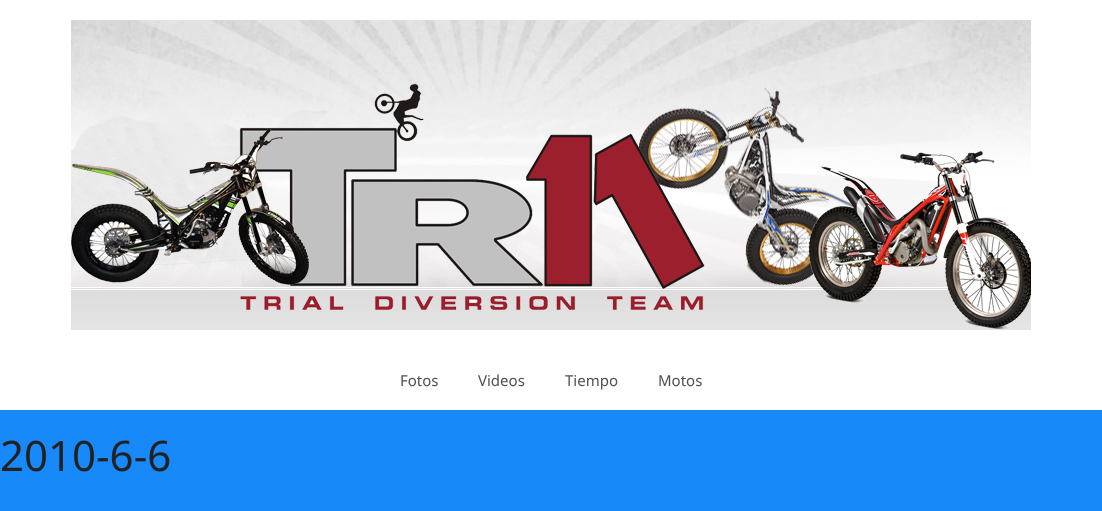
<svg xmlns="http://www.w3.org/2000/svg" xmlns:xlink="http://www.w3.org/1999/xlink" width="1102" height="511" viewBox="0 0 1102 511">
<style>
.cls-1{font:15px Noto Sans;fill:#515151}
.cls-2{font:42px Noto Sans;fill:#222222}
</style>
<rect width="100%" height="100%" fill="#1889f9"/>
<rect fill="#ffffff" x="0" y="0" width="1102" height="410"/>
<image xlink:href="image0.png" x="71" y="20" width="960" height="310"/>
<text class="cls-1" x="400" y="386">Fotos</text>
<text class="cls-1" x="478" y="386">Videos</text>
<text class="cls-1" x="565" y="386">Tiempo</text>
<text class="cls-1" x="658" y="386">Motos</text>
<text class="cls-2" x="0" y="471">2010-6-6</text>
</svg>
